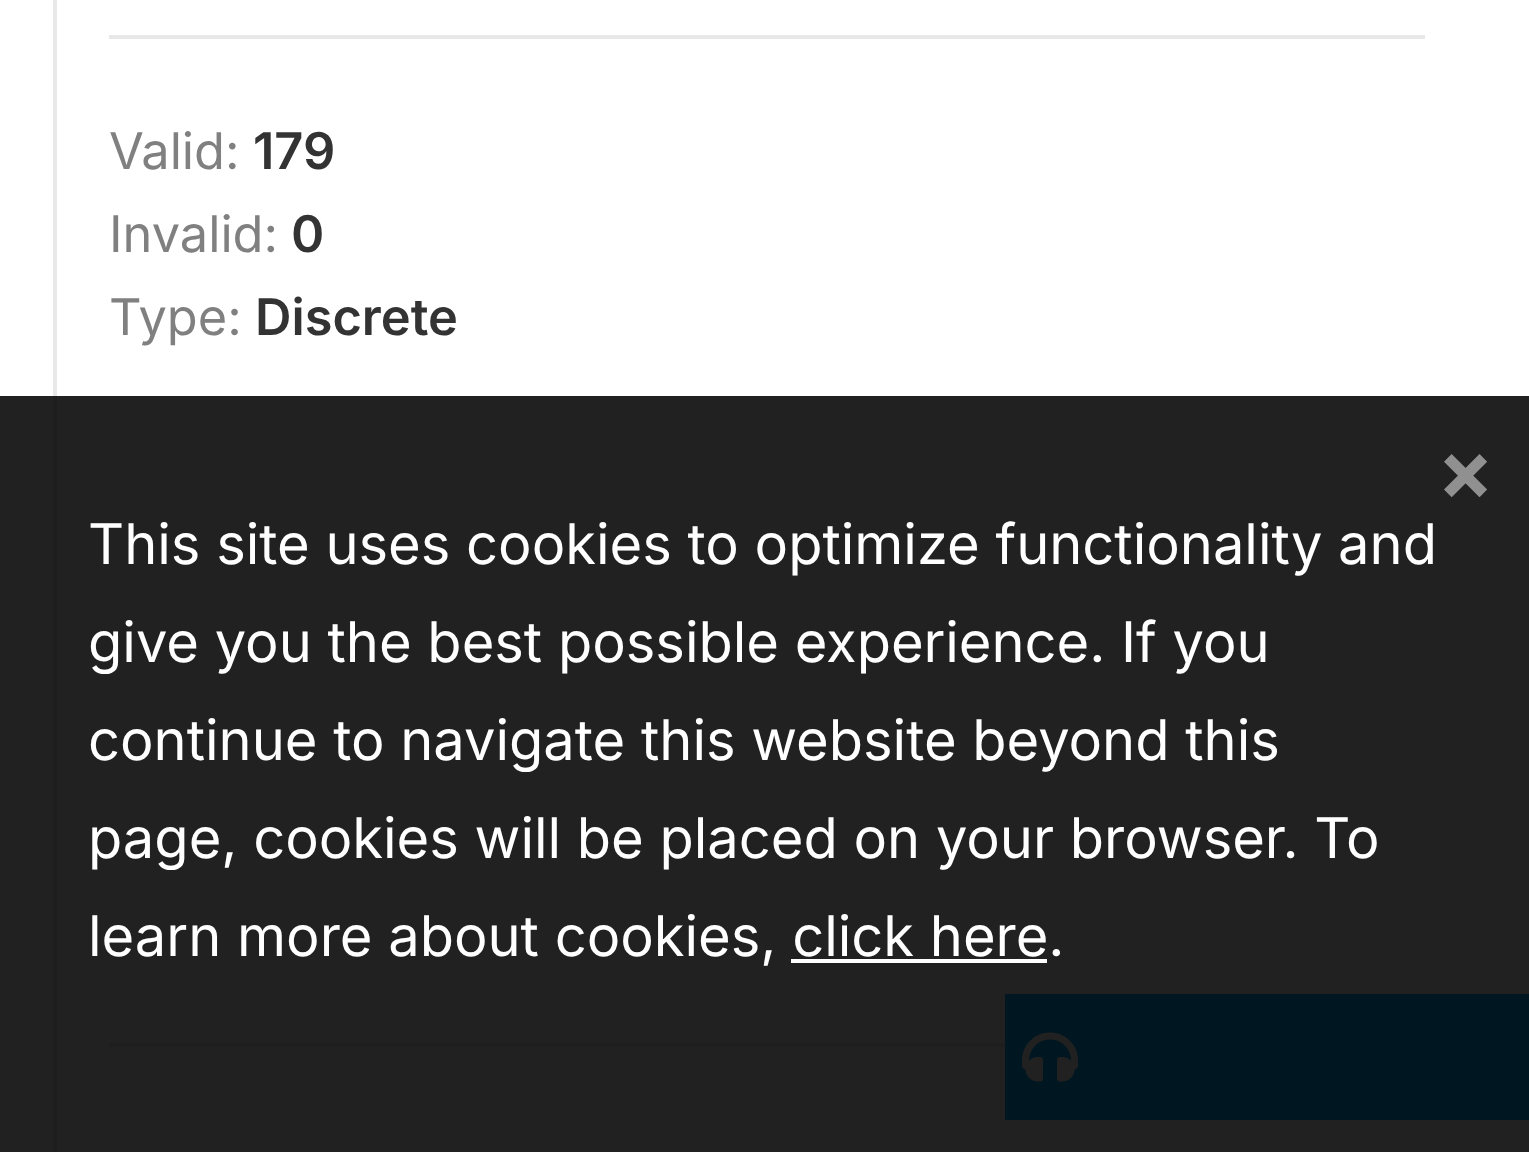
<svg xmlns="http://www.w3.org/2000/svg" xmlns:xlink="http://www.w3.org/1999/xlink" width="1529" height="1152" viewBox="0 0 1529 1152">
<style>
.cls-1{font:50.5px Inter;fill:#808080}
.cls-2{font:600 50.5px Inter;fill:#333333}
.cls-3{font:bold 84px Inter;fill:#909090}
.cls-4{font:56px Inter;fill:#ffffff}
</style>
<rect width="100%" height="100%" fill="#ffffff"/>
<rect fill="#e8e8e8" x="53" y="0" width="4" height="1152"/>
<rect fill="#e8e8e8" x="109" y="35" width="1316" height="4"/>
<rect fill="#e8e8e8" x="109" y="1043" width="896" height="4"/>
<rect fill="#03a9f4" x="1005" y="994" width="524" height="126"/>
<image xlink:href="image0.png" x="1022" y="1032" width="56" height="50"/>
<rect fill="#000000" fill-opacity="0.87" x="0" y="396" width="1529" height="756"/>
<rect fill="#ffffff" x="791" y="959" width="256" height="4"/>
<text class="cls-1" x="109" y="169">Valid:</text>
<text class="cls-2" x="253" y="169">179</text>
<text class="cls-1" x="109" y="252">Invalid:</text>
<text class="cls-2" x="291" y="252">0</text>
<text class="cls-1" x="109" y="335">Type:</text>
<text class="cls-2" x="255" y="335">Discrete</text>
<text class="cls-3" x="1437" y="500">×</text>
<text class="cls-4"><tspan x="88" y="564">This site uses cookies to optimize functionality and</tspan><tspan x="88" y="662">give you the best possible experience. If you</tspan><tspan x="88" y="760">continue to navigate this website beyond this</tspan><tspan x="88" y="858">page, cookies will be placed on your browser. To</tspan><tspan x="88" y="956">learn more about cookies, click here.</tspan></text>
</svg>
